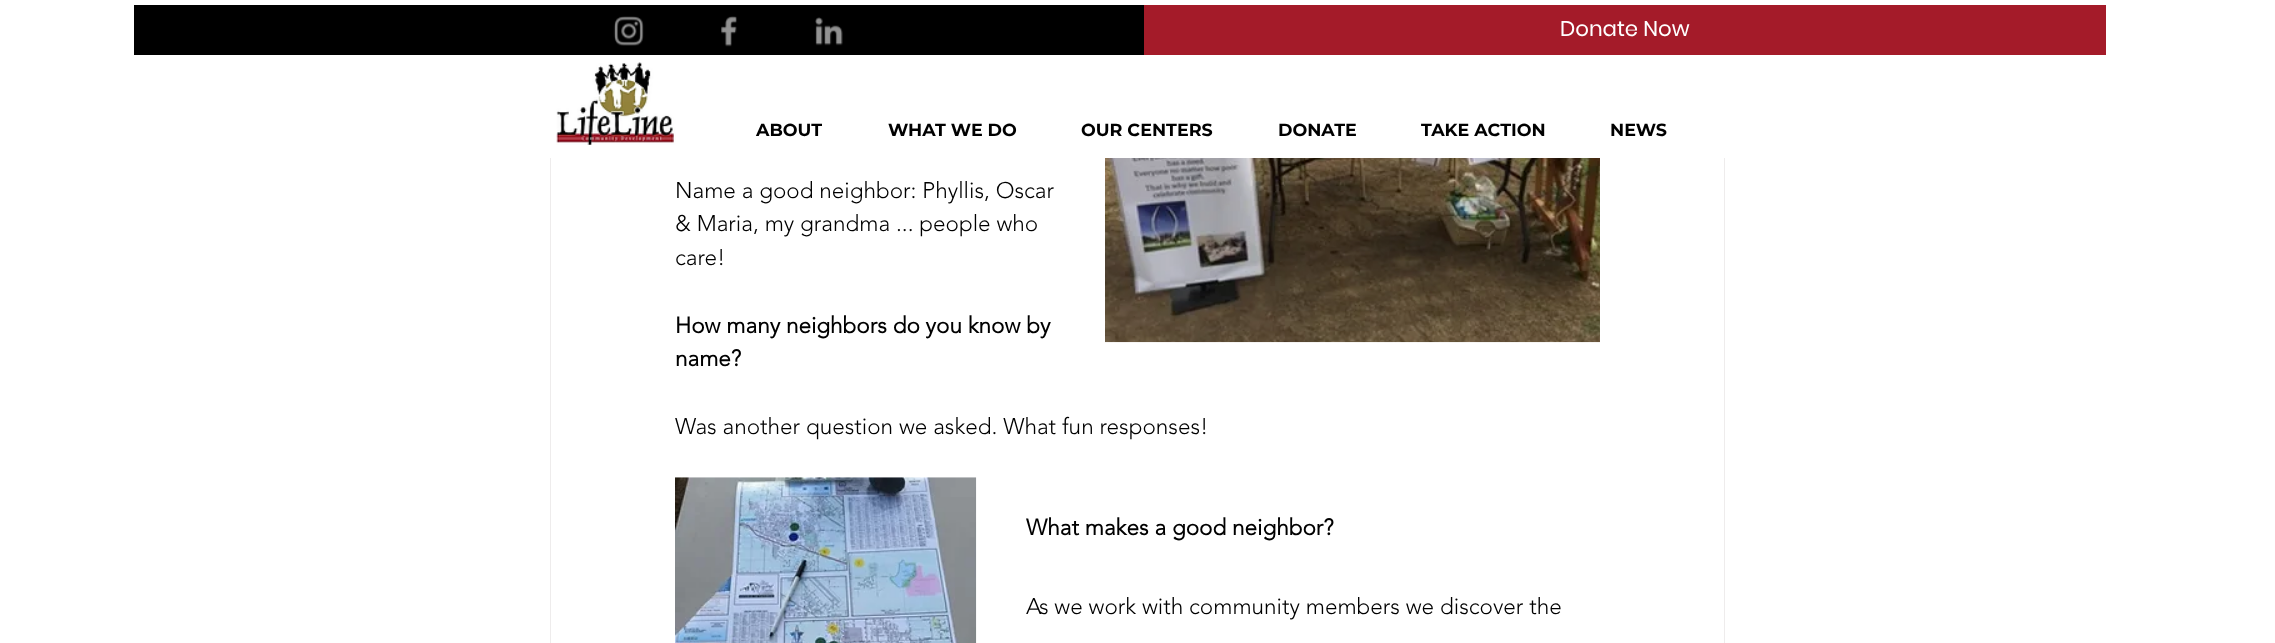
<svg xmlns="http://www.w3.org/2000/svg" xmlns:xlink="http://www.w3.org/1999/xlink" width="2275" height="643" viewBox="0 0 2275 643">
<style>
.cls-1{font:21.25px Poppins;fill:#ffffff}
.cls-2{font:bold 17.5px Montserrat;fill:#000000}
.cls-3{font:300 22.5px 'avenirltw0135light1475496';fill:#000000}
.cls-4{font:bold 22.5px 'avenirltw0135light1475496';fill:#000000}
</style>
<rect width="100%" height="100%" fill="#ffffff"/>
<rect fill="none" stroke="#eeecec" x="550.5" y="-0.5" width="1174" height="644"/>
<rect fill="#ffffff" x="550" y="0" width="1175" height="158"/>
<rect fill="#000000" x="134" y="5" width="1010" height="50"/>
<image xlink:href="image0.png" x="613" y="16" width="31" height="30"/>
<image xlink:href="image1.png" x="721" y="16" width="16" height="31"/>
<image xlink:href="image2.png" x="815" y="17" width="28" height="29"/>
<rect fill="#a41b29" x="1144" y="5" width="962" height="50"/>
<image xlink:href="image3.png" x="556" y="62" width="120" height="83"/>
<image xlink:href="image4.png" x="1105" y="158" width="495" height="185"/>
<image xlink:href="image5.png" x="675" y="477" width="302" height="166"/>
<text class="cls-1" x="1560" y="36">Donate Now</text>
<text class="cls-2" x="756" y="136">ABOUT</text>
<text class="cls-2" x="888" y="136">WHAT WE DO</text>
<text class="cls-2" x="1081" y="136">OUR CENTERS</text>
<text class="cls-2" x="1278" y="136">DONATE</text>
<text class="cls-2" x="1421" y="136">TAKE ACTION</text>
<text class="cls-2" x="1610" y="136">NEWS</text>
<text class="cls-3"><tspan x="675" y="198">Name a good neighbor: Phyllis, Oscar</tspan><tspan x="675" y="231">&amp; Maria, my grandma ... people who</tspan><tspan x="675" y="265">care!</tspan></text>
<text class="cls-4"><tspan x="675" y="333">How many neighbors do you know by</tspan><tspan x="675" y="366">name?</tspan></text>
<text class="cls-3" x="675" y="434">Was another question we asked. What fun responses!</text>
<text class="cls-4" x="1026" y="535">What makes a good neighbor?</text>
<text class="cls-3" x="1026" y="614">As we work with community members we discover the</text>
</svg>
